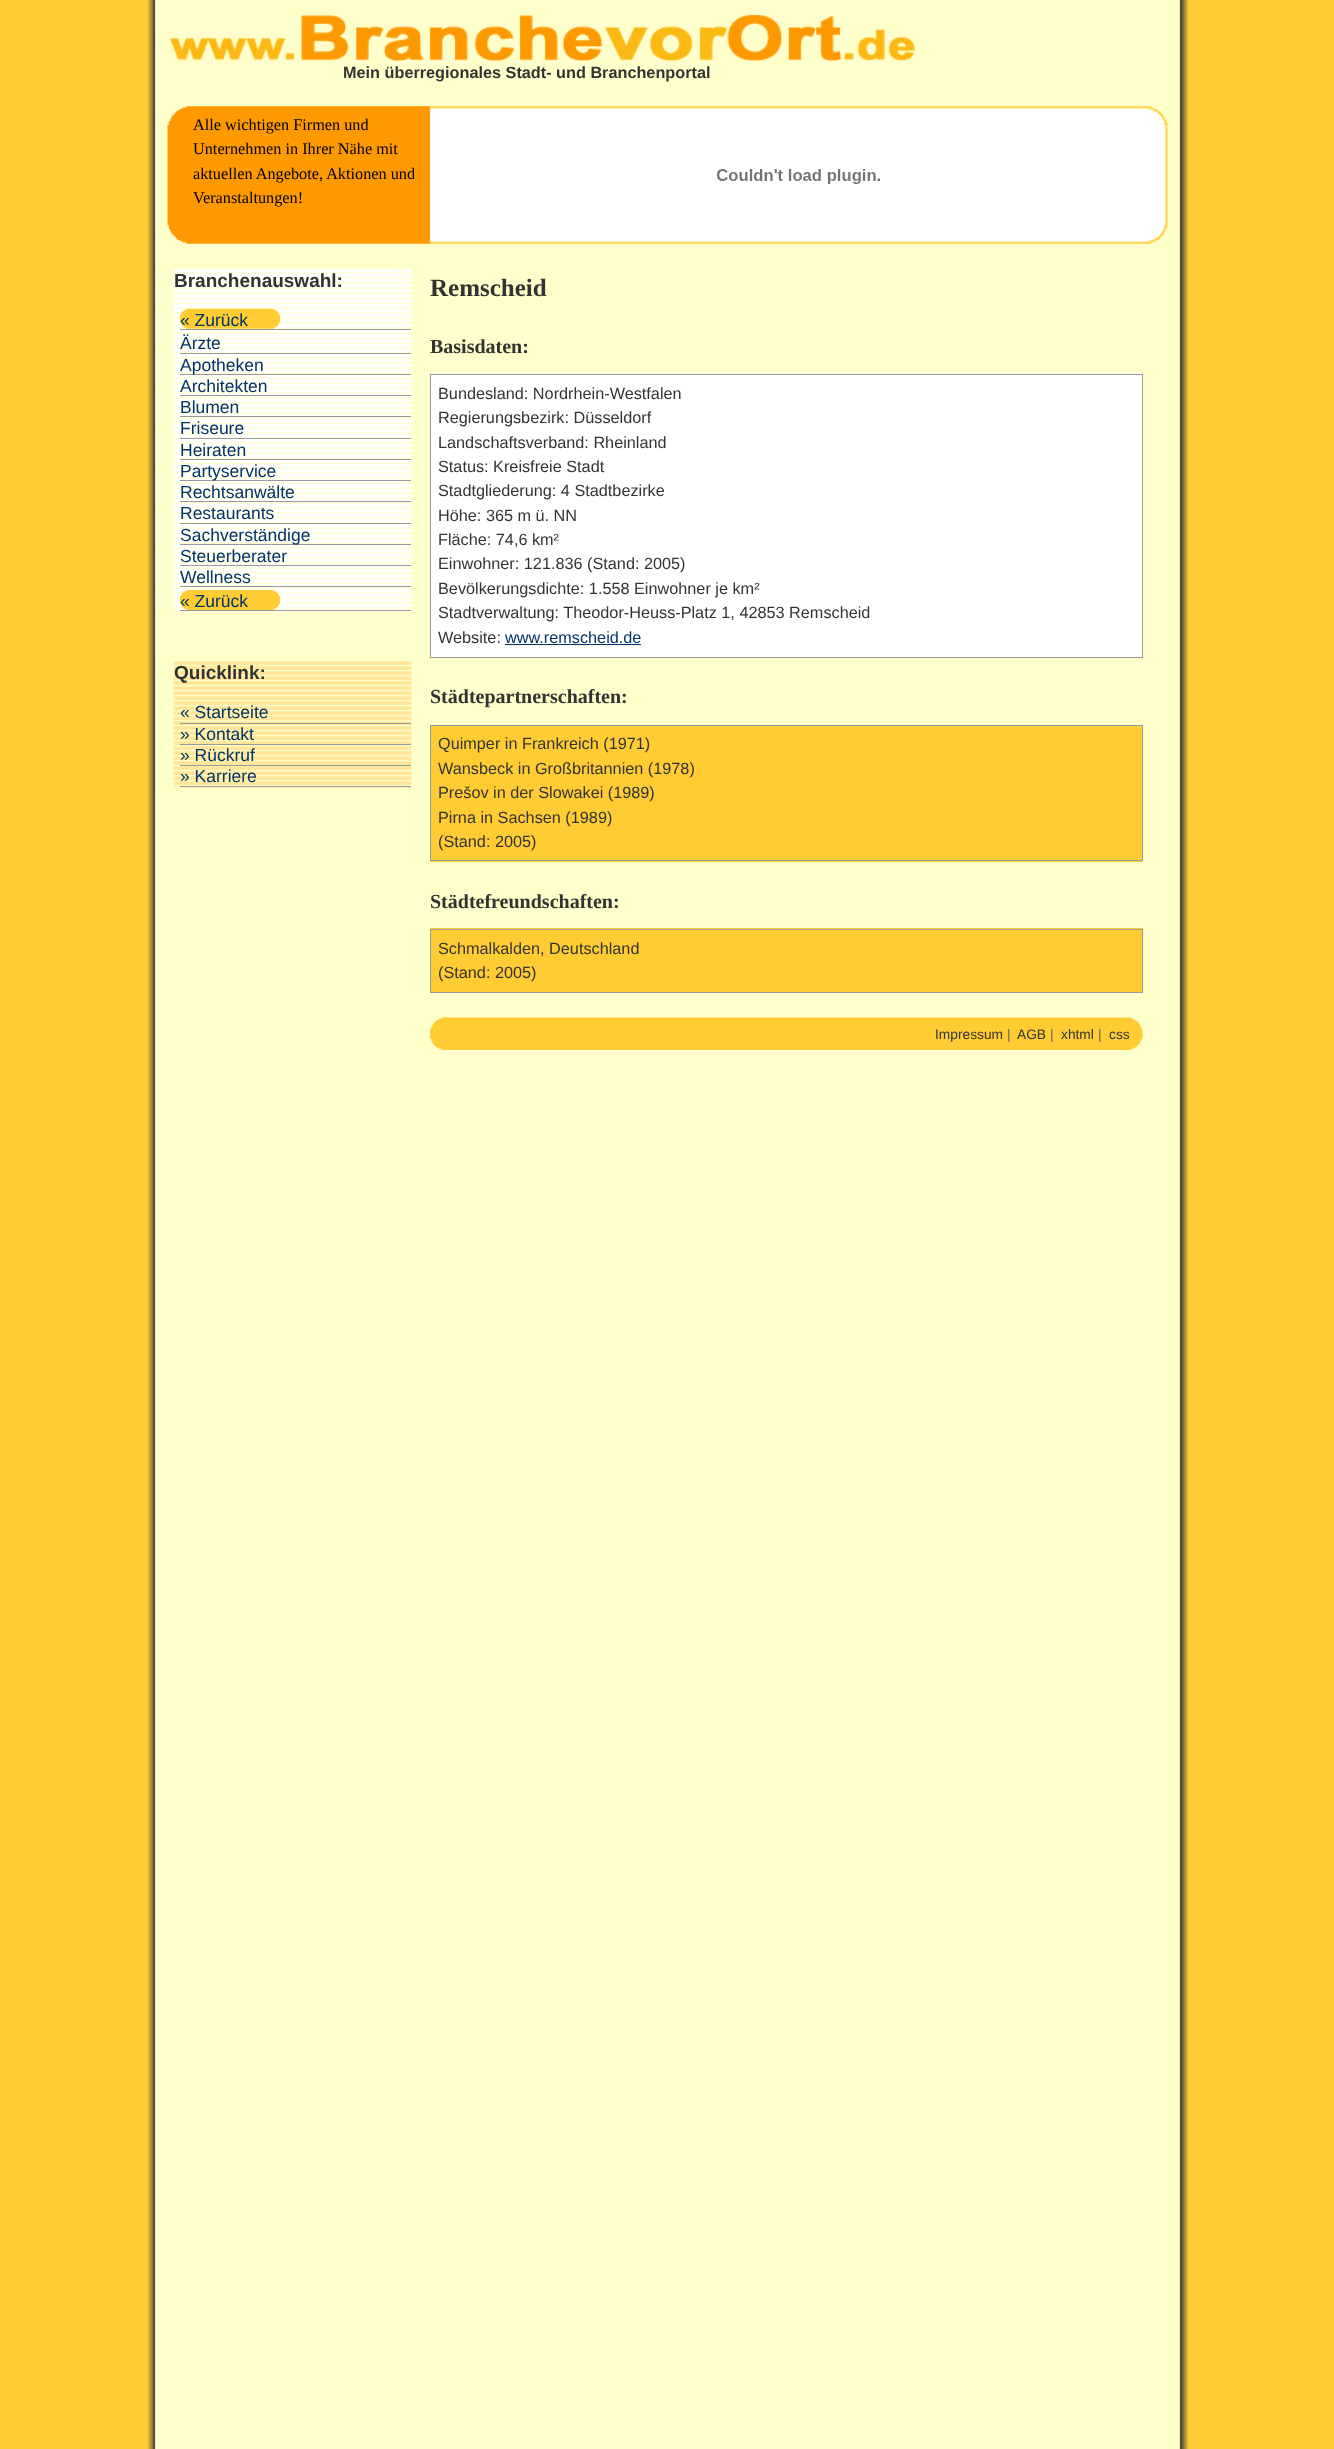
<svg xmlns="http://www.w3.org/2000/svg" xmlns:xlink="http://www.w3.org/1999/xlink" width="1334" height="2449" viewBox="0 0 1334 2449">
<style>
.cls-1{font:bold 16.25px Liberation Sans;fill:#333333}
.cls-2{font:16.25px Liberation Serif;fill:#000000}
.cls-3{font:bold 25px Liberation Serif;fill:#333333}
.cls-4{font:bold 19px Liberation Sans;fill:#333333}
.cls-5{font:17.5px Liberation Sans;fill:#003366}
.cls-6{font:bold 20px Liberation Serif;fill:#333333}
.cls-7{font:16.25px Liberation Sans;fill:#333333}
.cls-8{font:16.25px Liberation Sans;fill:#003366}
.cls-9{font:13.75px Liberation Sans;fill:#333333}
.cls-10{font:13.75px Liberation Sans;fill:#666666}
</style>
<rect width="100%" height="100%" fill="#ffffff"/>
<image xlink:href="image0.png" x="0" y="0" width="1334" height="2449"/>
<image xlink:href="image1.png" x="169" y="14" width="747" height="48"/>
<image xlink:href="image2.png" x="167" y="106" width="1001" height="138"/>
<image xlink:href="image3.png" x="717" y="169" width="163" height="15"/>
<image xlink:href="image4.png" x="173" y="269" width="239" height="343"/>
<image xlink:href="image5.png" x="180" y="308" width="100" height="21"/>
<rect fill="#999999" x="180" y="329" width="231" height="1"/>
<rect fill="#999999" x="180" y="353" width="231" height="1"/>
<rect fill="#999999" x="180" y="374" width="231" height="1"/>
<rect fill="#999999" x="180" y="395" width="231" height="1"/>
<rect fill="#999999" x="180" y="416" width="231" height="1"/>
<rect fill="#999999" x="180" y="438" width="231" height="1"/>
<rect fill="#999999" x="180" y="459" width="231" height="1"/>
<rect fill="#999999" x="180" y="480" width="231" height="1"/>
<rect fill="#999999" x="180" y="501" width="231" height="1"/>
<rect fill="#999999" x="180" y="523" width="231" height="1"/>
<rect fill="#999999" x="180" y="544" width="231" height="1"/>
<rect fill="#999999" x="180" y="565" width="231" height="1"/>
<rect fill="#999999" x="180" y="586" width="231" height="1"/>
<image xlink:href="image6.png" x="180" y="590" width="100" height="20"/>
<rect fill="#999999" x="180" y="610" width="231" height="1"/>
<image xlink:href="image7.png" x="173" y="661" width="239" height="127"/>
<rect fill="#999999" x="180" y="723" width="231" height="1"/>
<rect fill="#999999" x="180" y="744" width="231" height="1"/>
<rect fill="#999999" x="180" y="765" width="231" height="1"/>
<rect fill="#999999" x="180" y="786" width="231" height="1"/>
<rect fill="#ffffff" x="430" y="373" width="713" height="284"/>
<rect fill="none" stroke="#999999" x="430.5" y="374.5" width="712" height="283"/>
<rect fill="#003366" x="505" y="644" width="136" height="1"/>
<rect fill="#ffcc33" x="430" y="726" width="713" height="136"/>
<rect fill="none" stroke="#999999" x="430.5" y="725.5" width="712" height="135"/>
<rect fill="#ffcc33" x="430" y="928" width="713" height="64"/>
<rect fill="none" stroke="#999999" x="430.5" y="929.5" width="712" height="63"/>
<image xlink:href="image8.png" x="430" y="1017" width="713" height="33"/>
<text class="cls-1" x="343" y="78">Mein überregionales Stadt- und Branchenportal</text>
<text class="cls-2"><tspan x="193" y="130">Alle wichtigen Firmen und</tspan><tspan x="193" y="154">Unternehmen in Ihrer Nähe mit</tspan><tspan x="193" y="179">aktuellen Angebote, Aktionen und</tspan><tspan x="193" y="203">Veranstaltungen!</tspan></text>
<text class="cls-3" x="430" y="296">Remscheid</text>
<text class="cls-4" x="174" y="287">Branchenauswahl:</text>
<text class="cls-5"><tspan x="180" y="326">« Zurück</tspan><tspan x="180" y="349">Ärzte</tspan><tspan x="180" y="371">Apotheken</tspan><tspan x="180" y="392">Architekten</tspan><tspan x="180" y="413">Blumen</tspan><tspan x="180" y="434">Friseure</tspan><tspan x="180" y="456">Heiraten</tspan><tspan x="180" y="477">Partyservice</tspan><tspan x="180" y="498">Rechtsanwälte</tspan><tspan x="180" y="519">Restaurants</tspan><tspan x="180" y="541">Sachverständige</tspan><tspan x="180" y="562">Steuerberater</tspan><tspan x="180" y="583">Wellness</tspan><tspan x="180" y="607">« Zurück</tspan></text>
<text class="cls-4" x="174" y="679">Quicklink:</text>
<text class="cls-5"><tspan x="180" y="718">« Startseite</tspan><tspan x="180" y="740">» Kontakt</tspan><tspan x="180" y="761">» Rückruf</tspan><tspan x="180" y="782">» Karriere</tspan></text>
<text class="cls-6" x="430" y="353">Basisdaten:</text>
<text class="cls-7"><tspan x="438" y="399">Bundesland: Nordrhein-Westfalen</tspan><tspan x="438" y="423">Regierungsbezirk: Düsseldorf</tspan><tspan x="438" y="448">Landschaftsverband: Rheinland</tspan><tspan x="438" y="472">Status: Kreisfreie Stadt</tspan><tspan x="438" y="496">Stadtgliederung: 4 Stadtbezirke</tspan><tspan x="438" y="521">Höhe: 365 m ü. NN</tspan><tspan x="438" y="545">Fläche: 74,6 km²</tspan><tspan x="438" y="569">Einwohner: 121.836 (Stand: 2005)</tspan><tspan x="438" y="594">Bevölkerungsdichte: 1.558 Einwohner je km²</tspan><tspan x="438" y="618">Stadtverwaltung: Theodor-Heuss-Platz 1, 42853 Remscheid</tspan><tspan x="438" y="643">Website:</tspan></text>
<text class="cls-8" x="505" y="643">www.remscheid.de</text>
<text class="cls-6" x="430" y="703">Städtepartnerschaften:</text>
<text class="cls-7"><tspan x="438" y="749">Quimper in Frankreich (1971)</tspan><tspan x="438" y="774">Wansbeck in Großbritannien (1978)</tspan><tspan x="438" y="798">Prešov in der Slowakei (1989)</tspan><tspan x="438" y="823">Pirna in Sachsen (1989)</tspan><tspan x="438" y="847">(Stand: 2005)</tspan></text>
<text class="cls-6" x="430" y="908">Städtefreundschaften:</text>
<text class="cls-7"><tspan x="438" y="954">Schmalkalden, Deutschland</tspan><tspan x="438" y="978">(Stand: 2005)</tspan></text>
<text class="cls-9" x="935" y="1039">Impressum</text>
<text class="cls-10" x="1007" y="1039">|</text>
<text class="cls-9" x="1017" y="1039">AGB</text>
<text class="cls-10" x="1050" y="1039">|</text>
<text class="cls-9" x="1061" y="1039">xhtml</text>
<text class="cls-10" x="1098" y="1039">|</text>
<text class="cls-9" x="1109" y="1039">css</text>
</svg>
